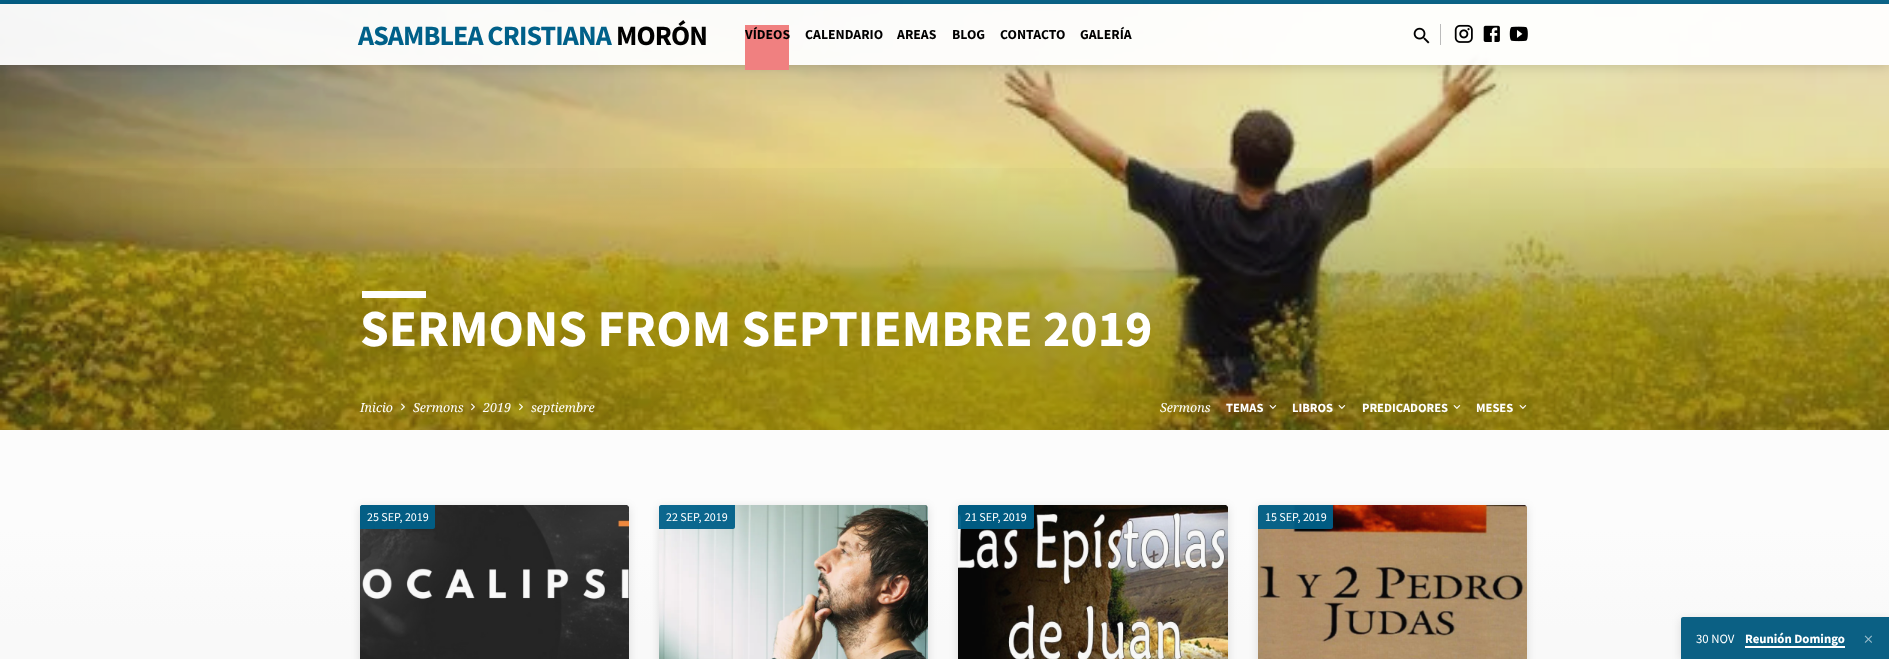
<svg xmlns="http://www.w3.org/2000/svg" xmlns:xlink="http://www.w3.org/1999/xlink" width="1889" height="659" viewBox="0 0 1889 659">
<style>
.cls-1{font:bold 28px Source Sans Pro;letter-spacing:-0.9px;fill:#006089}
.cls-2{font:bold 28px Source Sans Pro;letter-spacing:-0.9px;fill:#000000}
.cls-3{font:bold 13.75px Source Sans Pro;fill:#000000}
.cls-4{font:bold 51.8px Source Sans Pro;fill:#ffffff}
.cls-5{font:italic 12.5px Noto Serif;fill:#ffffff}
.cls-6{font:bold 12.5px Source Sans Pro;fill:#ffffff}
.cls-7{font:12px Source Sans Pro;fill:#ffffff}
.cls-8{font:12.75px Source Sans Pro;fill:#ffffff}
.cls-9{font:bold 12.75px Source Sans Pro;fill:#ffffff}
</style>
<defs>
<clipPath id="clip1"><path d="M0 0H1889V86H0ZM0 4H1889V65H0Z" clip-rule="evenodd"/></clipPath>
<linearGradient id="g1" gradientUnits="userSpaceOnUse" x1="945" y1="0" x2="945" y2="430"><stop offset="0" stop-color="#000000" stop-opacity="0"/><stop offset="0.36" stop-color="#000000" stop-opacity="0"/><stop offset="0.76" stop-color="#000000" stop-opacity="0.28"/><stop offset="1" stop-color="#000000" stop-opacity="0.28"/></linearGradient>
<linearGradient id="g2" gradientUnits="userSpaceOnUse" x1="945" y1="430" x2="945" y2="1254"><stop offset="0.12" stop-color="#fcfcfc"/><stop offset="0.24" stop-color="#f9f9f9"/></linearGradient>
</defs>
<rect width="100%" height="100%" fill="#ffffff"/>
<image xlink:href="image4.png" x="0" y="0" width="1889" height="430"/>
<rect fill="#006089" fill-opacity="0.95" x="0" y="0" width="1889" height="4"/>
<rect fill="#ffffff" fill-opacity="0.95" x="0" y="4" width="1889" height="61"/>
<g clip-path="url(#clip1)">
<rect fill="#000000" fill-opacity="0.14" filter="blur(6px)" x="0" y="6" width="1889" height="61"/>
</g>
<rect fill="#f08080" x="745" y="25" width="44" height="45"/>
<image xlink:href="image0.png" x="1413" y="27" width="17" height="17"/>
<rect fill="#bbbbbb" x="1440" y="24" width="1" height="21"/>
<image xlink:href="image1.png" x="1454" y="24" width="19" height="19"/>
<image xlink:href="image2.png" x="1483" y="25" width="17" height="17"/>
<image xlink:href="image3.png" x="1509" y="26" width="19" height="16"/>
<rect fill="url(#g1)" x="0" y="168" width="1889" height="262"/>
<rect fill="#ffffff" x="362" y="291" width="64" height="7"/>
<image xlink:href="image5.png" x="401" y="403" width="4" height="8"/>
<image xlink:href="image6.png" x="471" y="403" width="4" height="8"/>
<image xlink:href="image7.png" x="519" y="403" width="4" height="8"/>
<image xlink:href="image8.png" x="1269" y="405" width="8" height="4"/>
<image xlink:href="image9.png" x="1338" y="405" width="8" height="4"/>
<image xlink:href="image10.png" x="1453" y="405" width="8" height="4"/>
<image xlink:href="image11.png" x="1519" y="405" width="8" height="4"/>
<rect fill="url(#g2)" x="0" y="430" width="1889" height="229"/>
<rect fill="#000000" fill-opacity="0.12" filter="blur(5px)" x="360" y="507" width="269" height="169" rx="2"/>
<rect fill="#ffffff" x="360" y="505" width="269" height="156" rx="2"/>
<image xlink:href="image12.png" x="360" y="505" width="269" height="154"/>
<path fill="#006089" fill-opacity="0.95" d="M362 505H435V527C435 528 434 529 433 529H360V507C360 506 361 505 362 505Z"/>
<rect fill="#000000" fill-opacity="0.12" filter="blur(5px)" x="659" y="507" width="269" height="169" rx="2"/>
<rect fill="#ffffff" x="659" y="505" width="269" height="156" rx="2"/>
<image xlink:href="image13.png" x="659" y="505" width="269" height="154"/>
<path fill="#006089" fill-opacity="0.95" d="M661 505H735V527C735 528 734 529 733 529H659V507C659 506 660 505 661 505Z"/>
<rect fill="#000000" fill-opacity="0.12" filter="blur(5px)" x="958" y="507" width="270" height="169" rx="2"/>
<rect fill="#ffffff" x="958" y="505" width="270" height="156" rx="2"/>
<image xlink:href="image14.png" x="958" y="505" width="270" height="154"/>
<path fill="#006089" fill-opacity="0.95" d="M960 505H1034V527C1034 528 1033 529 1032 529H958V507C958 506 959 505 960 505Z"/>
<rect fill="#000000" fill-opacity="0.12" filter="blur(5px)" x="1258" y="507" width="269" height="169" rx="2"/>
<rect fill="#ffffff" x="1258" y="505" width="269" height="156" rx="2"/>
<image xlink:href="image15.png" x="1258" y="505" width="269" height="154"/>
<path fill="#006089" fill-opacity="0.95" d="M1260 505H1333V527C1333 528 1332 529 1331 529H1258V507C1258 506 1259 505 1260 505Z"/>
<rect fill="#000000" fill-opacity="0.12" filter="blur(5px)" x="1681" y="619" width="208" height="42" rx="2"/>
<path fill="#0c688f" d="M1683 617H1889V659H1681V619C1681 618 1682 617 1683 617Z"/>
<rect fill="#000000" fill-opacity="0.07" x="1681" y="617" width="208" height="42"/>
<rect fill="#ffffff" x="1745" y="646" width="100" height="2"/>
<image xlink:href="image16.png" x="1864" y="635" width="8" height="8"/>
<text class="cls-1" x="358" y="45">ASAMBLEA CRISTIANA</text>
<text class="cls-2" x="616" y="45">MORÓN</text>
<text class="cls-3" x="745" y="39">VÍDEOS</text>
<text class="cls-3" x="805" y="39">CALENDARIO</text>
<text class="cls-3" x="897" y="39">AREAS</text>
<text class="cls-3" x="952" y="39">BLOG</text>
<text class="cls-3" x="1000" y="39">CONTACTO</text>
<text class="cls-3" x="1080" y="39">GALERÍA</text>
<text class="cls-4" x="360" y="346">SERMONS FROM SEPTIEMBRE 2019</text>
<text class="cls-5" x="360" y="412">Inicio</text>
<text class="cls-5" x="413" y="412">Sermons</text>
<text class="cls-5" x="483" y="412">2019</text>
<text class="cls-5" x="531" y="412">septiembre</text>
<text class="cls-5" x="1160" y="412">Sermons</text>
<text class="cls-6" x="1226" y="412">TEMAS</text>
<text class="cls-6" x="1292" y="412">LIBROS</text>
<text class="cls-6" x="1362" y="412">PREDICADORES</text>
<text class="cls-6" x="1476" y="412">MESES</text>
<text class="cls-7" x="367" y="521">25 SEP, 2019</text>
<text class="cls-7" x="666" y="521">22 SEP, 2019</text>
<text class="cls-7" x="965" y="521">21 SEP, 2019</text>
<text class="cls-7" x="1265" y="521">15 SEP, 2019</text>
<text class="cls-8" x="1696" y="643">30 NOV</text>
<text class="cls-9" x="1745" y="643">Reunión Domingo</text>
</svg>
